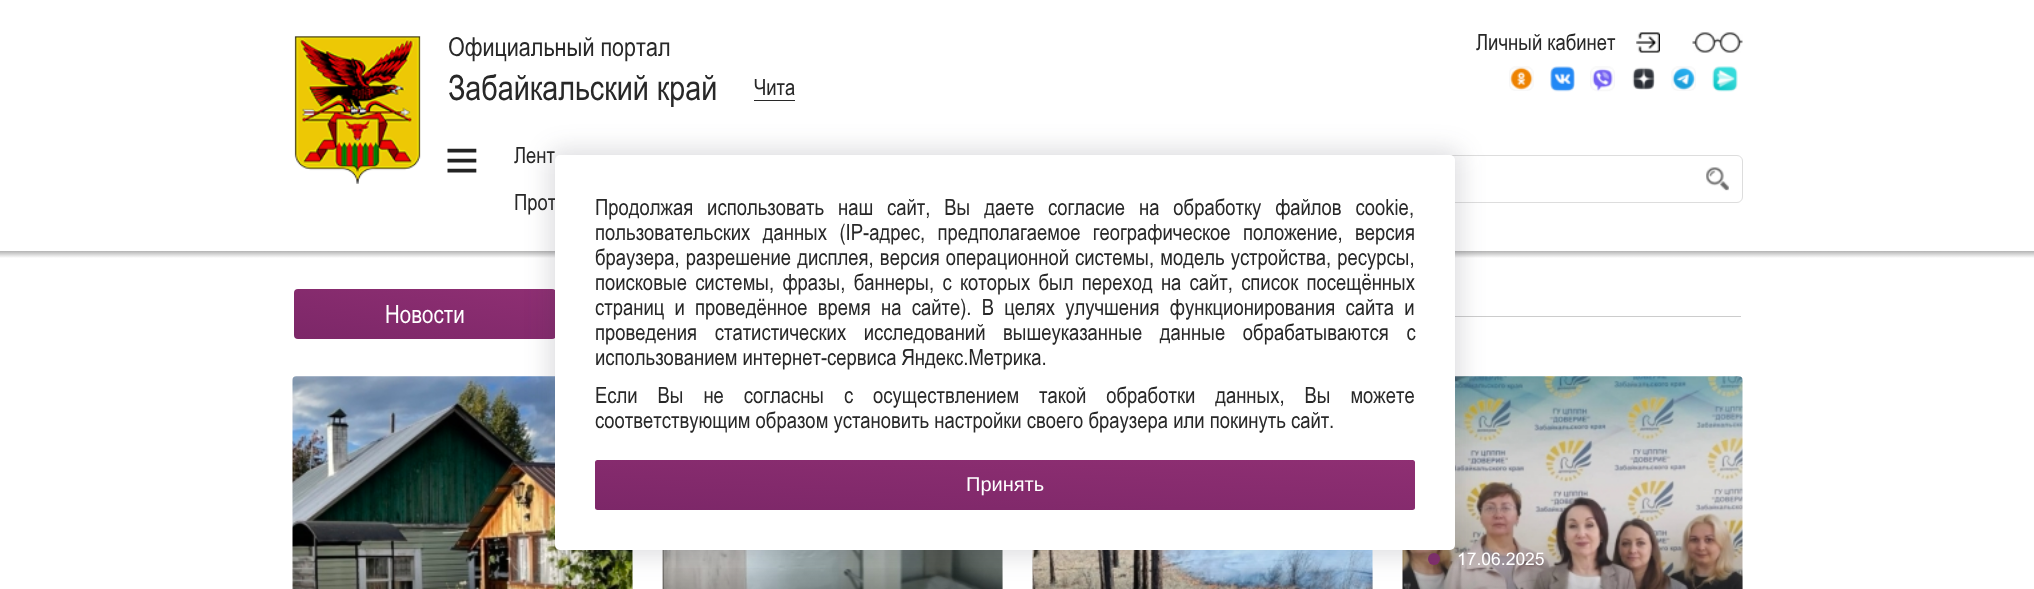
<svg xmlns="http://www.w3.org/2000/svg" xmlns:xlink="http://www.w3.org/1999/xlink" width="2034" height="589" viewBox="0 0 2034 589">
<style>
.cls-1{font:26.25px Arial;fill:#282828}
.cls-2{font:35px Arial;fill:#282828}
.cls-3{font:22.5px Arial;fill:#282828}
.cls-4{font:20px Liberation Sans;fill:#ffffff}
.cls-5{font:25px Arial;fill:#ffffff}
.cls-6{font:17.5px 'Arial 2';fill:#ffffff}
</style>
<defs>
<linearGradient id="g1" gradientUnits="userSpaceOnUse" x1="1018" y1="251" x2="1018" y2="258"><stop offset="0" stop-color="#b3b3b3"/><stop offset="1" stop-color="#ffffff"/></linearGradient>
<linearGradient id="g2" gradientUnits="userSpaceOnUse" x1="434" y1="266" x2="416" y2="362"><stop offset="0" stop-color="#8f2f73"/><stop offset="1" stop-color="#7c2768"/></linearGradient>
<linearGradient id="g3" gradientUnits="userSpaceOnUse" x1="463" y1="376" x2="463" y2="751"><stop offset="0.5" stop-color="#000000" stop-opacity="0"/><stop offset="1" stop-color="#000000" stop-opacity="0.9"/></linearGradient>
<linearGradient id="g4" gradientUnits="userSpaceOnUse" x1="833" y1="376" x2="833" y2="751"><stop offset="0.5" stop-color="#000000" stop-opacity="0"/><stop offset="1" stop-color="#000000" stop-opacity="0.9"/></linearGradient>
<linearGradient id="g5" gradientUnits="userSpaceOnUse" x1="1203" y1="376" x2="1203" y2="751"><stop offset="0.5" stop-color="#000000" stop-opacity="0"/><stop offset="1" stop-color="#000000" stop-opacity="0.9"/></linearGradient>
<linearGradient id="g6" gradientUnits="userSpaceOnUse" x1="1573" y1="376" x2="1573" y2="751"><stop offset="0.5" stop-color="#000000" stop-opacity="0"/><stop offset="1" stop-color="#000000" stop-opacity="0.9"/></linearGradient>
<linearGradient id="g7" gradientUnits="userSpaceOnUse" x1="1008" y1="435" x2="1002" y2="535"><stop offset="0" stop-color="#8f2f73"/><stop offset="1" stop-color="#7c2768"/></linearGradient>
</defs>
<rect width="100%" height="100%" fill="#ffffff"/>
<image xlink:href="image0.png" x="294" y="36" width="127" height="148"/>
<rect fill="#282828" x="754" y="100" width="41" height="1"/>
<image xlink:href="image1.png" x="1636" y="32" width="24" height="21"/>
<image xlink:href="image2.png" x="1692" y="32" width="51" height="21"/>
<image xlink:href="image3.png" x="1509" y="66" width="25" height="25"/>
<image xlink:href="image4.png" x="1550" y="66" width="25" height="26"/>
<image xlink:href="image5.png" x="1590" y="66" width="25" height="26"/>
<image xlink:href="image6.png" x="1632" y="67" width="23" height="23"/>
<image xlink:href="image7.png" x="1671" y="66" width="25" height="25"/>
<image xlink:href="image8.png" x="1712" y="66" width="26" height="26"/>
<image xlink:href="image9.png" x="447" y="148" width="30" height="25"/>
<rect fill="none" stroke="#dddddd" x="1360.5" y="155.5" width="382" height="47" rx="5.5"/>
<image xlink:href="image10.png" x="1706" y="167" width="23" height="24"/>
<rect fill="url(#g1)" x="0" y="251" width="2034" height="7"/>
<rect fill="url(#g2)" x="294" y="289" width="262" height="50" rx="4"/>
<rect fill="#cccccc" x="1455" y="316" width="286" height="1"/>
<image xlink:href="image11.png" x="292" y="376" width="341" height="213"/>
<rect fill="url(#g3)" x="293" y="568" width="340" height="21"/>
<image xlink:href="image12.png" x="662" y="550" width="341" height="39"/>
<rect fill="url(#g4)" x="663" y="568" width="340" height="21"/>
<image xlink:href="image13.png" x="1032" y="550" width="341" height="39"/>
<rect fill="url(#g5)" x="1033" y="568" width="340" height="21"/>
<image xlink:href="image14.png" x="1402" y="376" width="341" height="213"/>
<rect fill="url(#g6)" x="1403" y="568" width="340" height="21"/>
<circle fill="#822f6d" cx="1434" cy="559" r="6"/>
<rect fill="#2f3444" fill-opacity="0.16" filter="blur(12.5px)" x="549" y="149" width="912" height="407" rx="11"/>
<text class="cls-1" x="448" y="56">Официальный портал</text>
<text class="cls-2" x="448" y="100">Забайкальский край</text>
<text class="cls-3" x="754" y="95">Чита</text>
<text class="cls-3" x="1476" y="50">Личный кабинет</text>
<text class="cls-3" x="514" y="163">Лент</text>
<text class="cls-3" x="514" y="210">Прот</text>
<rect fill="#ffffff" x="555" y="155" width="900" height="395" rx="5"/>
<text class="cls-3"><tspan x="595" y="215" word-spacing="8.75">Продолжая использовать наш сайт, Вы даете согласие на обработку файлов cookie,</tspan><tspan x="595" y="240" word-spacing="7.25">пользовательских данных (IP-адрес, предполагаемое географическое положение, версия</tspan><tspan x="595" y="265" word-spacing="1">браузера, разрешение дисплея, версия операционной системы, модель устройства, ресурсы,</tspan><tspan x="595" y="290" word-spacing="3.1">поисковые системы, фразы, баннеры, с которых был переход на сайт, список посещённых</tspan><tspan x="595" y="315" word-spacing="5.1">страниц и проведённое время на сайте). В целях улучшения функционирования сайта и</tspan><tspan x="595" y="340" word-spacing="12.5">проведения статистических исследований вышеуказанные данные обрабатываются с</tspan><tspan x="595" y="365">использованием интернет-сервиса Яндекс.Метрика.</tspan><tspan x="595" y="403" word-spacing="14.75">Если Вы не согласны с осуществлением такой обработки данных, Вы можете</tspan><tspan x="595" y="428">соответствующим образом установить настройки своего браузера или покинуть сайт.</tspan></text>
<rect fill="url(#g7)" x="595" y="460" width="820" height="50" rx="2.5"/>
<text class="cls-4" x="966" y="491">Принять</text>
<text class="cls-5" x="385" y="323">Новости</text>
<text class="cls-6" x="1457" y="565">17.06.2025</text>
</svg>
